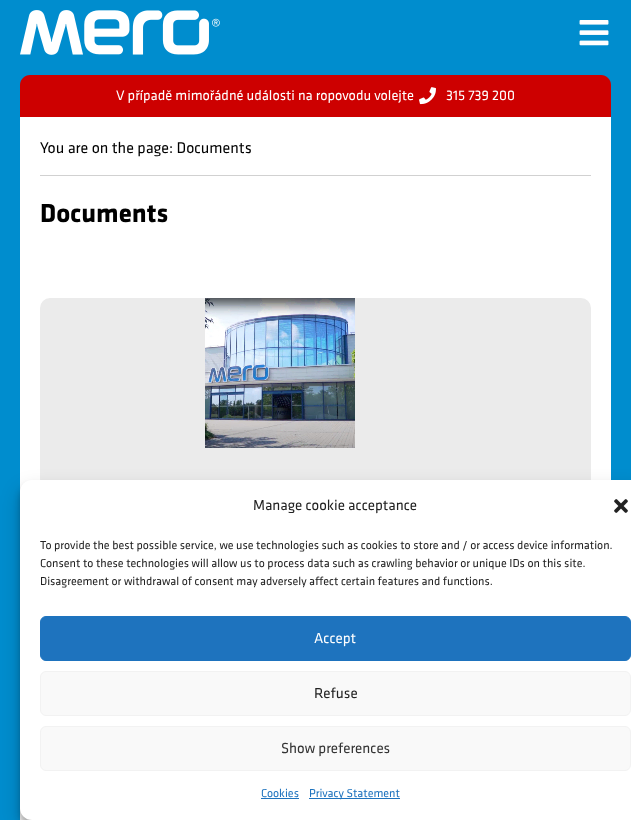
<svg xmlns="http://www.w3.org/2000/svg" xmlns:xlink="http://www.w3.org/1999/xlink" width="631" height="820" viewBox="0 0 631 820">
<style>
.cls-1{font:14.4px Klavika;fill:#ffffff}
.cls-2{font:16px Klavika;fill:#000000}
.cls-3{font:bold 27px Klavika;fill:#000000}
.cls-4{font:15px Klavika;fill:#222222}
.cls-5{font:12px Klavika;fill:#222222}
.cls-6{font:15px Klavika;fill:#ffffff}
.cls-7{font:15px Klavika;fill:#333333}
.cls-8{font:12px Klavika;fill:#1e73be}
</style>
<rect width="100%" height="100%" fill="#008dce"/>
<image xlink:href="image0.png" x="20" y="10" width="200" height="45"/>
<image xlink:href="image1.png" x="579" y="20" width="30" height="26"/>
<path fill="#cd0000" d="M30 75H601C606.5 75 611 79.5 611 85V117H20V85C20 79.5 24.5 75 30 75Z"/>
<image xlink:href="image2.png" x="419" y="87" width="17" height="18"/>
<rect fill="#ffffff" x="20" y="117" width="591" height="703"/>
<rect fill="#d1d1d1" x="40" y="175" width="551" height="1"/>
<rect fill="#ebebeb" x="40" y="298" width="551" height="212" rx="10"/>
<image xlink:href="image3.png" x="205" y="298" width="150" height="150"/>
<rect fill="#000000" fill-opacity="0.23" filter="blur(3px)" x="20" y="486" width="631" height="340" rx="12"/>
<rect fill="#000000" fill-opacity="0.19" filter="blur(10px)" x="20" y="490" width="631" height="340" rx="12"/>
<rect fill="#ffffff" x="20" y="480" width="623" height="340" rx="12"/>
<image xlink:href="image4.png" x="614" y="499" width="14" height="14"/>
<rect fill="#1e73be" stroke="#1e73be" x="40.5" y="616.5" width="590" height="44" rx="5.5"/>
<rect fill="#f9f9f9" stroke="#f2f2f2" x="40.5" y="671.5" width="590" height="44" rx="5.5"/>
<rect fill="#f9f9f9" stroke="#f2f2f2" x="40.5" y="726.5" width="590" height="44" rx="5.5"/>
<rect fill="#1e73be" x="261" y="798" width="38" height="1"/>
<rect fill="#1e73be" x="309" y="798" width="91" height="1"/>
<text class="cls-1" x="116" y="100">V případě mimořádné události na ropovodu volejte</text>
<text class="cls-1" x="446" y="100">315 739 200</text>
<text class="cls-2" x="40" y="153">You are on the page: Documents</text>
<text class="cls-3" x="40" y="222">Documents</text>
<text class="cls-4" x="253" y="510">Manage cookie acceptance</text>
<text class="cls-5"><tspan x="40" y="549">To provide the best possible service, we use technologies such as cookies to store and / or access device information.</tspan><tspan x="40" y="567">Consent to these technologies will allow us to process data such as crawling behavior or unique IDs on this site.</tspan><tspan x="40" y="585">Disagreement or withdrawal of consent may adversely affect certain features and functions.</tspan></text>
<text class="cls-6" x="314" y="643">Accept</text>
<text class="cls-4" x="314" y="698">Refuse</text>
<text class="cls-7" x="281" y="753">Show preferences</text>
<text class="cls-8" x="261" y="797">Cookies</text>
<text class="cls-8" x="309" y="797">Privacy Statement</text>
</svg>
